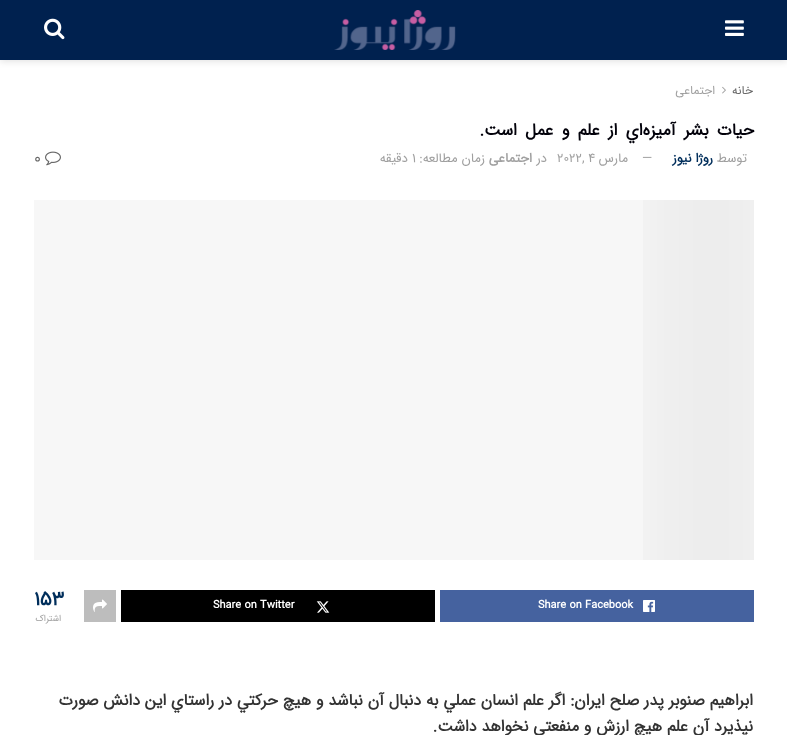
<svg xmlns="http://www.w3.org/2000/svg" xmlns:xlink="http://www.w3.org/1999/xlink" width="787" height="735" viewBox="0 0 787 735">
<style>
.cls-1{font:12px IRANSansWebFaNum;direction:rtl;fill:#666666}
.cls-2{font:12px IRANSansWebFaNum;direction:rtl;fill:#a0a0a0}
.cls-3{font:bold 16.75px IRANSansWebFaNum;letter-spacing:-0.65px;direction:rtl;fill:#02010a}
.cls-4{font:13px IRANSansWebFaNum;direction:rtl;fill:#a0a0a0}
.cls-5{font:bold 13px IRANSansWebFaNum;direction:rtl;fill:#002e5b}
.cls-6{font:13px IRANSansWebFaNum;fill:#a0a0a0}
.cls-7{font:bold 13px IRANSansWebFaNum;direction:rtl;fill:#a0a0a0}
.cls-8{font:16px IRANSansWebFaNum;fill:#666666}
.cls-9{font:bold 11px IRANSansWebFaNum;fill:#ffffff}
.cls-10{font:bold 20px IRANSansWebFaNum;fill:#002e5b}
.cls-11{font:9px IRANSansWebFaNum;direction:rtl;fill:#a0a0a0}
.cls-12{font:bold 16px IRANSansWebFaNum;direction:rtl;fill:#333333}
</style>
<rect width="100%" height="100%" fill="#ffffff"/>
<rect fill="#000000" fill-opacity="0.1" filter="blur(3px)" x="0" y="2" width="787" height="60"/>
<rect fill="#00214f" x="0" y="0" width="787" height="60"/>
<image xlink:href="image0.png" x="725" y="20" width="19" height="16"/>
<image xlink:href="image1.png" x="334" y="10" width="122" height="40"/>
<image xlink:href="image2.png" x="44" y="18" width="21" height="22"/>
<image xlink:href="image3.png" x="722" y="86" width="4" height="8"/>
<image xlink:href="image4.png" x="45" y="151" width="16" height="15"/>
<rect fill="#f7f7f7" x="34" y="200" width="609" height="360"/>
<image xlink:href="image5.png" x="643" y="200" width="111" height="360"/>
<rect fill="#45629f" x="440" y="590" width="314" height="32"/>
<image xlink:href="image6.png" x="643" y="600" width="12" height="12"/>
<rect fill="#000000" x="121" y="590" width="314" height="32"/>
<image xlink:href="image7.png" x="316" y="601" width="14" height="12"/>
<rect fill="#bdbdbd" x="84" y="590" width="32" height="32"/>
<image xlink:href="image8.png" x="93" y="599" width="14" height="13"/>
<text class="cls-1" x="753" y="94">خانه</text>
<text class="cls-2" x="715" y="94">اجتماعی</text>
<text class="cls-3" x="754" y="135" word-spacing="3.25">حيات بشر آميزه‌اي از علم و عمل است.</text>
<text class="cls-4" x="747" y="162">توسط</text>
<text class="cls-5" x="713" y="162">روژا نیوز</text>
<text class="cls-6" x="642" y="162">—</text>
<text class="cls-4" x="628" y="162">مارس</text>
<text class="cls-6" x="557" y="162">2022, 4</text>
<text class="cls-4" x="547" y="162">در</text>
<text class="cls-7" x="532" y="162">اجتماعی</text>
<text class="cls-4" x="485" y="162">زمان مطالعه:</text>
<text class="cls-6" x="412" y="162">1</text>
<text class="cls-4" x="408" y="162">دقیقه</text>
<text class="cls-8" x="34" y="163">0</text>
<text class="cls-9" x="538" y="608">Share on Facebook</text>
<text class="cls-9" x="213" y="608">Share on Twitter</text>
<text class="cls-10" x="34" y="605">153</text>
<text class="cls-11" x="61" y="621">اشتراک</text>
<text class="cls-12"><tspan x="753" y="705">ابراهیم صنوبر پدر صلح ایران: اگر علم انسان عملي به دنبال آن نباشد و هيچ حركتي در راستاي اين دانش صورت</tspan><tspan x="753" y="731">نپذيرد آن علم هيچ ارزش و منفعتي نخواهد داشت.</tspan></text>
</svg>
